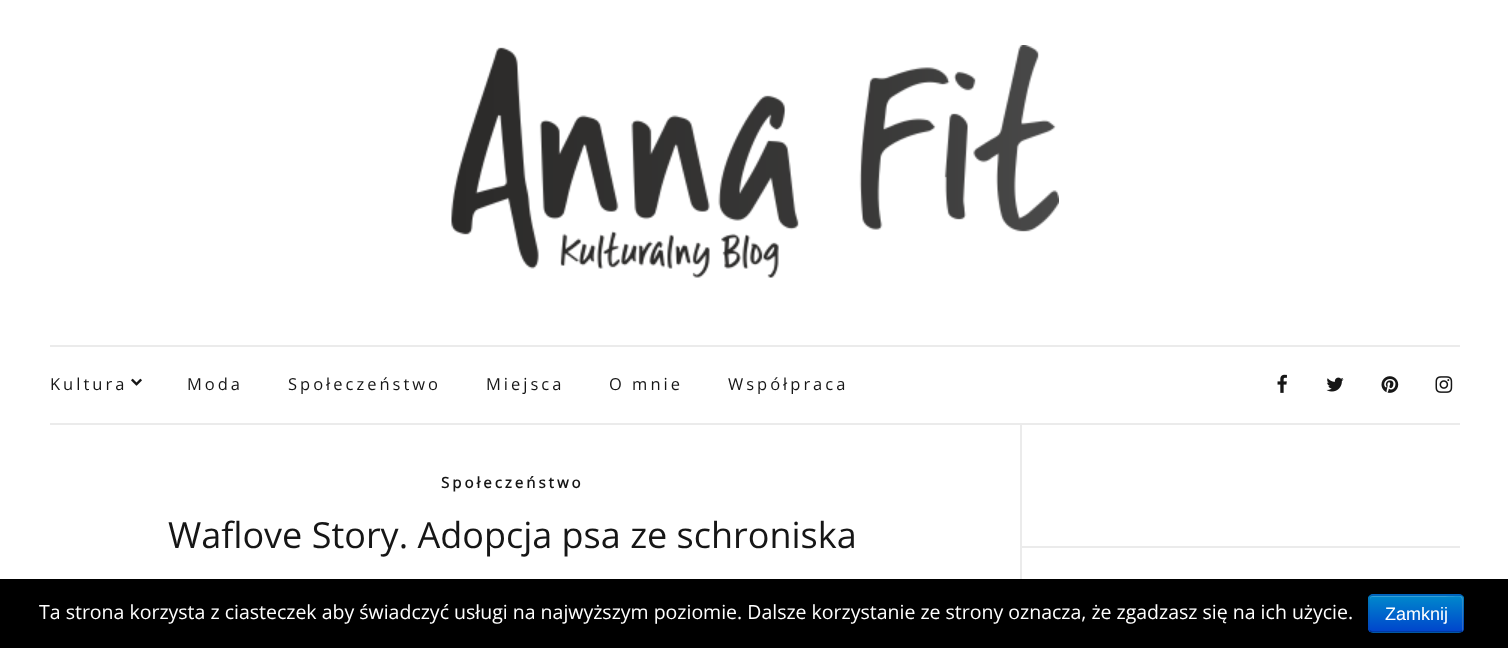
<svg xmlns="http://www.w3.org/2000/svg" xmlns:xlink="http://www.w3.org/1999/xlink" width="1508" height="648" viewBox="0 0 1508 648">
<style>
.cls-1{font:16.5px Open Sans;letter-spacing:3px;fill:#161616}
.cls-2{font:bold 15px Open Sans;letter-spacing:3px;fill:#161616}
.cls-3{font:36px Open Sans;fill:#161616}
.cls-4{font:19.5px Open Sans;fill:#ffffff}
.cls-5{font:18px Liberation Sans;fill:#ffffff}
</style>
<defs>
<clipPath id="clip1"><rect x="1368" y="594" width="96" height="39" rx="5"/></clipPath>
<linearGradient id="g1" gradientUnits="userSpaceOnUse" x1="1416" y1="596" x2="1416" y2="632"><stop offset="0" stop-color="#0088cc"/><stop offset="1" stop-color="#0044cc"/></linearGradient>
</defs>
<rect width="100%" height="100%" fill="#ffffff"/>
<image xlink:href="image0.png" x="451" y="45" width="608" height="233"/>
<rect fill="#ebebeb" x="50" y="345" width="1410" height="2"/>
<rect fill="#ebebeb" x="50" y="423" width="1410" height="2"/>
<image xlink:href="image1.png" x="131" y="378" width="11" height="8"/>
<image xlink:href="image2.png" x="1277" y="374" width="10" height="19"/>
<image xlink:href="image3.png" x="1326" y="377" width="18" height="15"/>
<image xlink:href="image4.png" x="1381" y="376" width="18" height="17"/>
<image xlink:href="image5.png" x="1435" y="376" width="18" height="17"/>
<rect fill="#ebebeb" x="1020" y="425" width="2" height="154"/>
<rect fill="#ebebeb" x="1022" y="546" width="438" height="2"/>
<rect fill="#000000" x="0" y="579" width="1508" height="69"/>
<rect fill="#006dcc" x="1368" y="594" width="96" height="39" rx="5"/>
<g clip-path="url(#clip1)">
<rect fill="url(#g1)" x="1368" y="596" width="96" height="36"/>
</g>
<path fill="#ffffff" fill-opacity="0.2" d="M1372 597H1445C1464 597 1462 593 1462 610V631C1463 631 1463 630 1463 629V599C1463 597 1462 596 1460 596H1373C1371 596 1370 597 1370 599V600C1370 598 1371 597 1372 597Z"/>
<path fill="none" stroke="#000000" stroke-opacity="0.25" stroke-width="1.5" d="M1462 631L1460 632H1372L1370 631"/>
<path fill="none" stroke="#000000" stroke-opacity="0.1" stroke-width="1.5" d="M1370 631C1368 629.5 1369 625.5 1369 623.5V613.5C1369 592 1365 595 1387 595H1445C1467 595 1463 592 1463 613.5V623.5C1463 625.5 1464 629.5 1462 631"/>
<text class="cls-1" x="50" y="390">Kultura</text>
<text class="cls-1" x="187" y="390">Moda</text>
<text class="cls-1" x="288" y="390">Społeczeństwo</text>
<text class="cls-1" x="486" y="390">Miejsca</text>
<text class="cls-1" x="609" y="390">O mnie</text>
<text class="cls-1" x="728" y="390">Współpraca</text>
<text class="cls-2" x="441" y="488">Społeczeństwo</text>
<text class="cls-3" x="168" y="548">Waflove Story. Adopcja psa ze schroniska</text>
<text class="cls-4" x="39" y="619">Ta strona korzysta z ciasteczek aby świadczyć usługi na najwyższym poziomie. Dalsze korzystanie ze strony oznacza, że zgadzasz się na ich użycie.</text>
<text class="cls-5" x="1385" y="620">Zamknij</text>
</svg>
